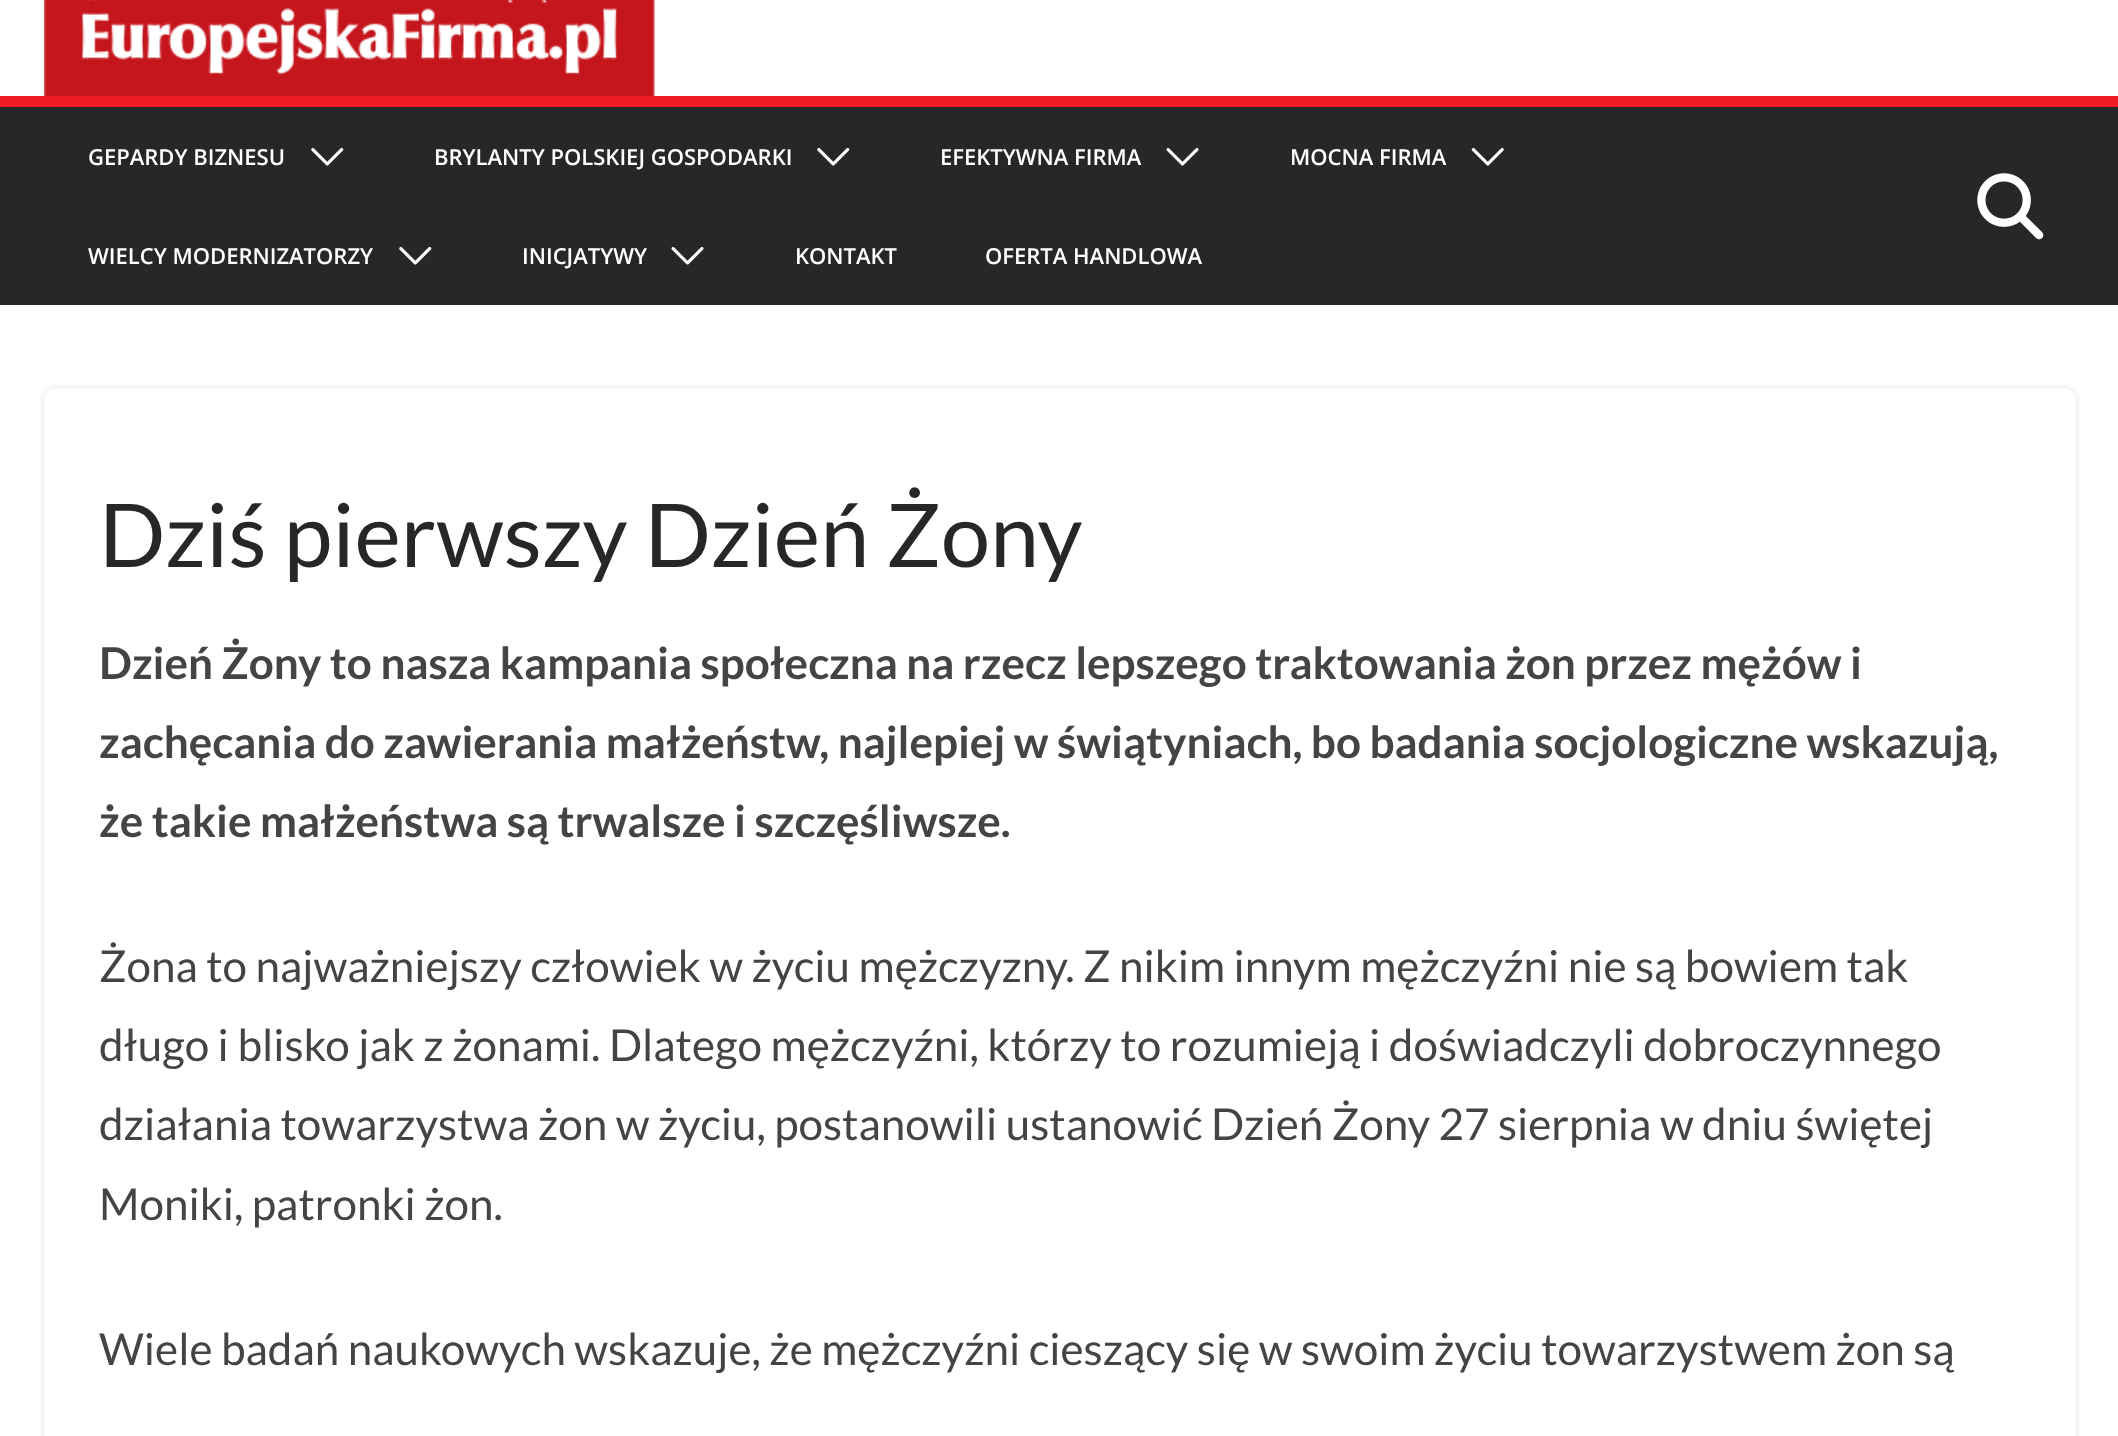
<svg xmlns="http://www.w3.org/2000/svg" xmlns:xlink="http://www.w3.org/1999/xlink" width="2118" height="1436" viewBox="0 0 2118 1436">
<style>
.cls-1{font:600 22px Open Sans;fill:#ffffff}
.cls-2{font:88px Lato;fill:#27272a}
.cls-3{font:bold 44px Lato;fill:#444444}
.cls-4{font:44px Lato;fill:#444444}
</style>
<defs>
<clipPath id="clip1"><path d="M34 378H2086V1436H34ZM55 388H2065C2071 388 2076 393 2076 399V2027C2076 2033 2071 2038 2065 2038H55C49 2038 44 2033 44 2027V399C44 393 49 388 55 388Z" clip-rule="evenodd"/></clipPath>
</defs>
<rect width="100%" height="100%" fill="#ffffff"/>
<image xlink:href="image0.png" x="44" y="0" width="611" height="96"/>
<rect fill="#27272a" x="0" y="107" width="2118" height="198"/>
<rect fill="#ed1b24" x="0" y="96" width="2118" height="11"/>
<image xlink:href="image1.png" x="311" y="147" width="33" height="19"/>
<image xlink:href="image1.png" x="817" y="147" width="33" height="19"/>
<image xlink:href="image2.png" x="1166" y="148" width="33" height="18"/>
<image xlink:href="image3.png" x="1471" y="147" width="33" height="19"/>
<image xlink:href="image1.png" x="399" y="246" width="33" height="19"/>
<image xlink:href="image2.png" x="671" y="247" width="33" height="18"/>
<image xlink:href="image4.png" x="1977" y="173" width="67" height="67"/>
<g clip-path="url(#clip1)">
<rect fill="#e4e4e7" filter="blur(3px)" x="44" y="388" width="2032" height="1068" rx="11"/>
</g>
<text class="cls-1" x="88" y="165">GEPARDY BIZNESU</text>
<text class="cls-1" x="434" y="165">BRYLANTY POLSKIEJ GOSPODARKI</text>
<text class="cls-1" x="940" y="165">EFEKTYWNA FIRMA</text>
<text class="cls-1" x="1290" y="165">MOCNA FIRMA</text>
<text class="cls-1" x="88" y="264">WIELCY MODERNIZATORZY</text>
<text class="cls-1" x="522" y="264">INICJATYWY</text>
<text class="cls-1" x="795" y="264">KONTAKT</text>
<text class="cls-1" x="985" y="264">OFERTA HANDLOWA</text>
<text class="cls-2" x="99" y="567">Dziś pierwszy Dzień Żony</text>
<text class="cls-3"><tspan x="99" y="679">Dzień Żony to nasza kampania społeczna na rzecz lepszego traktowania żon przez mężów i</tspan><tspan x="99" y="758">zachęcania do zawierania małżeństw, najlepiej w świątyniach, bo badania socjologiczne wskazują,</tspan><tspan x="99" y="837">że takie małżeństwa są trwalsze i szczęśliwsze.</tspan></text>
<text class="cls-4"><tspan x="99" y="982">Żona to najważniejszy człowiek w życiu mężczyzny. Z nikim innym mężczyźni nie są bowiem tak</tspan><tspan x="99" y="1061">długo i blisko jak z żonami. Dlatego mężczyźni, którzy to rozumieją i doświadczyli dobroczynnego</tspan><tspan x="99" y="1140">działania towarzystwa żon w życiu, postanowili ustanowić Dzień Żony 27 sierpnia w dniu świętej</tspan><tspan x="99" y="1220">Moniki, patronki żon.</tspan></text>
<text class="cls-4" x="99" y="1365">Wiele badań naukowych wskazuje, że mężczyźni cieszący się w swoim życiu towarzystwem żon są</text>
</svg>
